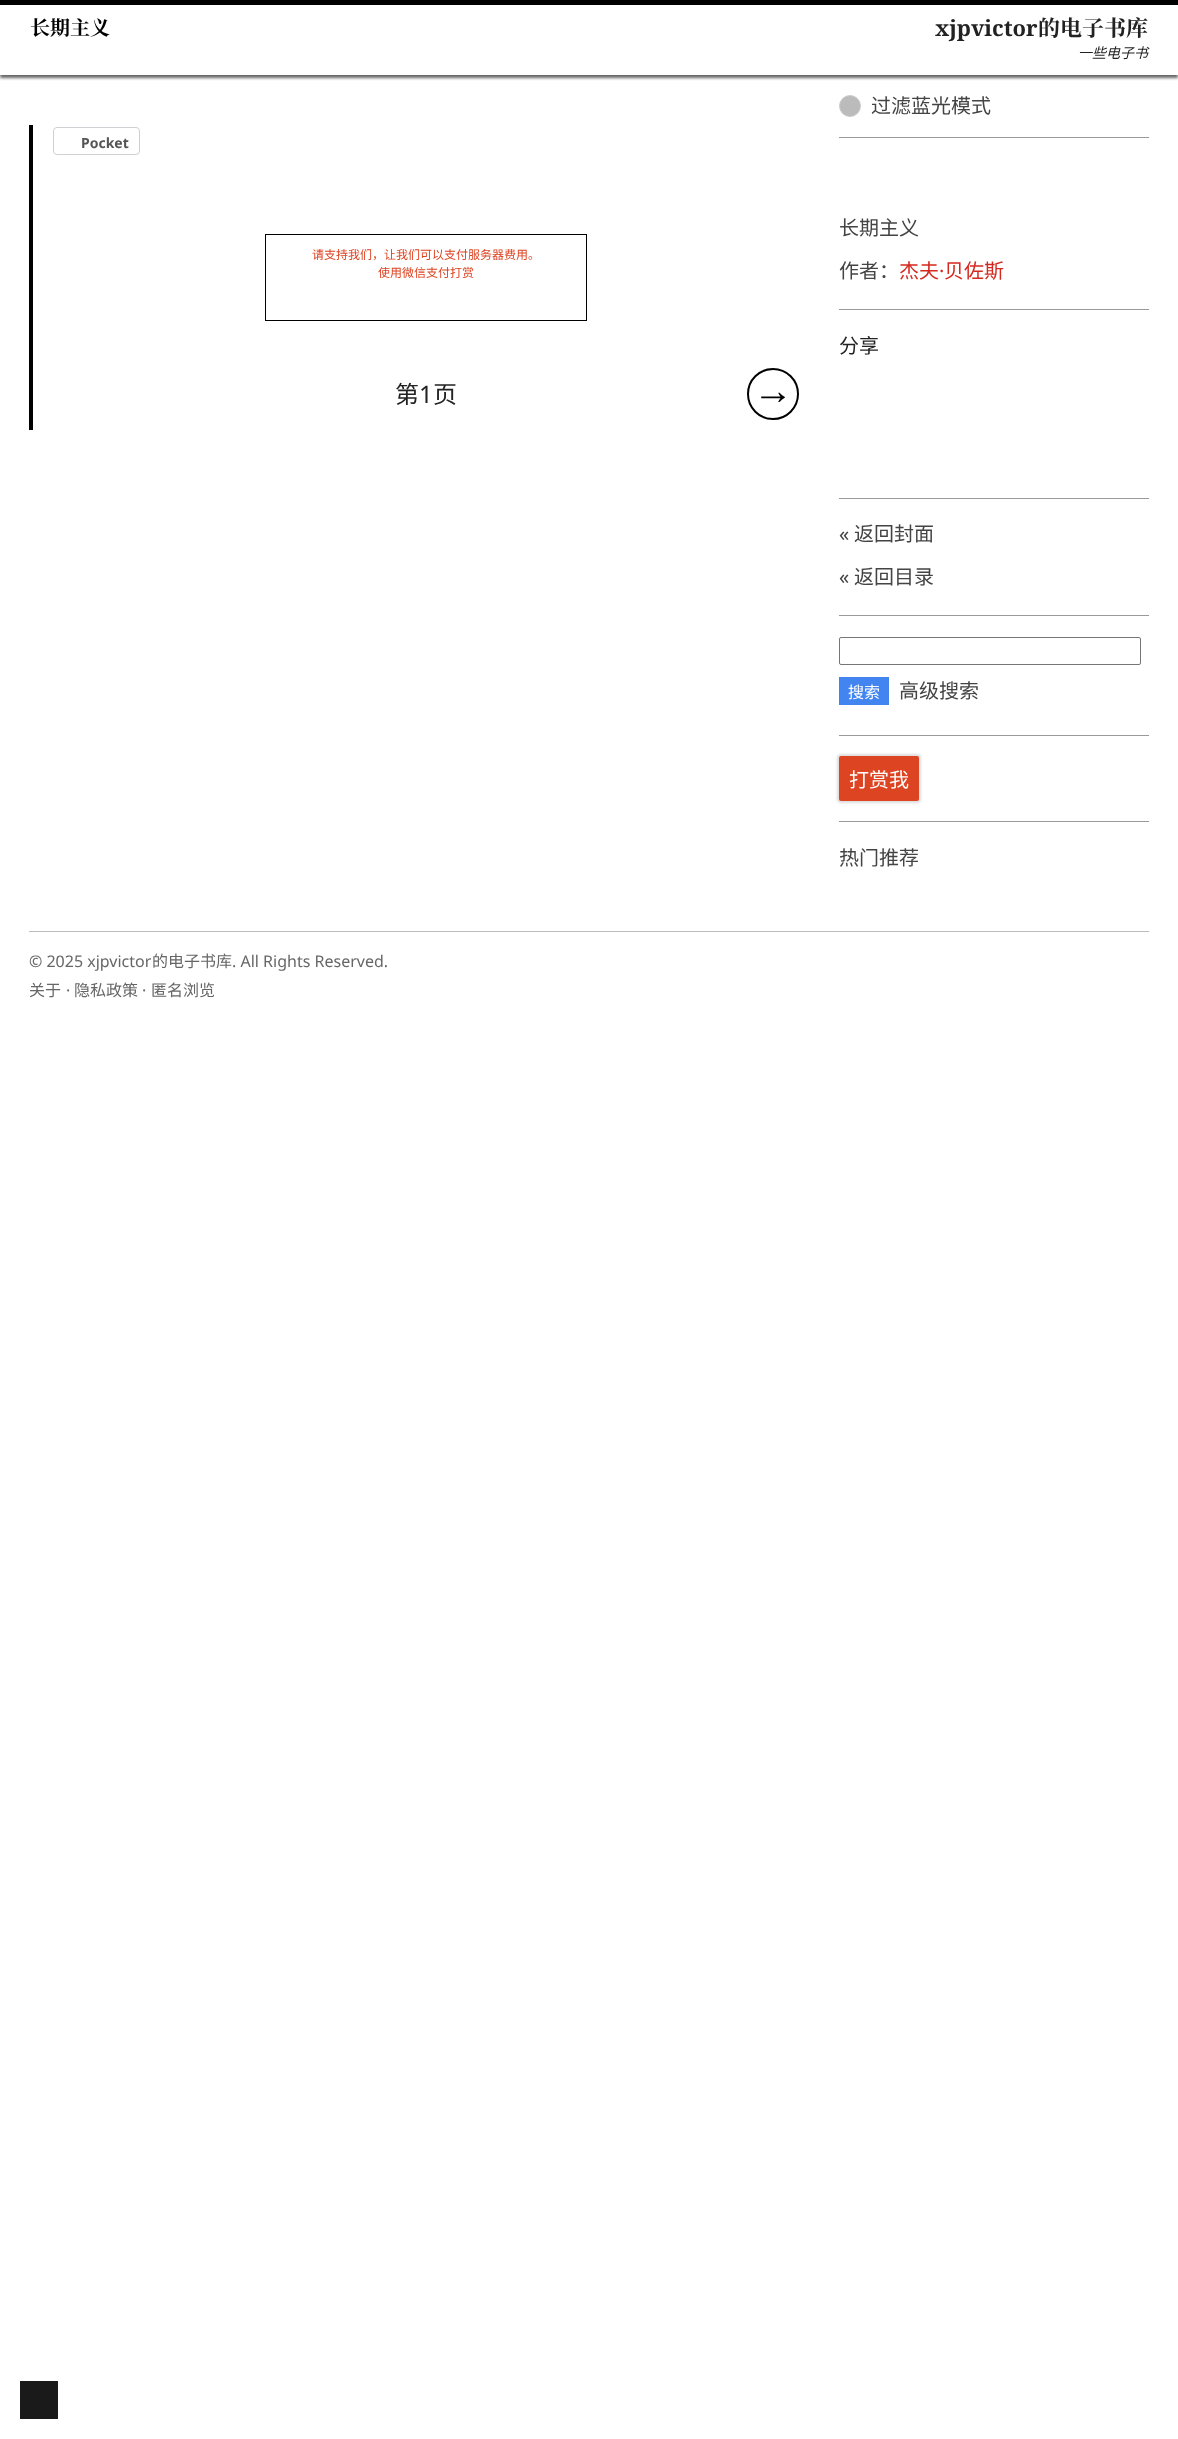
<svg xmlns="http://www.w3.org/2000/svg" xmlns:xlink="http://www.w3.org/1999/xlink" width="1178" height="2439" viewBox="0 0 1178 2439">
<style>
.cls-1{font:bold 20px Noto Serif CJK SC;fill:#000000}
.cls-2{font:bold 22px Noto Serif;fill:#222222}
.cls-3{font:bold 22px Noto Serif CJK SC;fill:#222222}
.cls-4{font:italic 14px Noto Sans CJK SC;fill:#222222}
.cls-5{font:bold 14px Noto Sans;fill:#555555}
.cls-6{font:12px Noto Sans CJK SC;fill:#dd4422}
.cls-7{font:24px Noto Sans CJK SC;fill:#222222}
.cls-8{font:24px Noto Sans;fill:#222222}
.cls-9{font:40px Liberation Sans;fill:#000000}
.cls-10{font:20px Noto Sans CJK SC;fill:#444444}
.cls-11{font:20px Noto Sans CJK SC;fill:#d4291f}
.cls-12{font:20px Noto Sans;fill:#d4291f}
.cls-13{font:20px Noto Sans CJK SC;fill:#222222}
.cls-14{font:20px Noto Sans;fill:#444444}
.cls-15{font:16px Noto Sans CJK SC;fill:#ffffff}
.cls-16{font:20px Noto Sans CJK SC;fill:#ffffff}
.cls-17{font:16px Noto Sans;fill:#666666}
.cls-18{font:16px Noto Sans CJK SC;fill:#666666}
</style>
<defs>
<clipPath id="clip1"><rect x="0" y="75" width="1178" height="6"/></clipPath>
</defs>
<rect width="100%" height="100%" fill="#ffffff"/>
<g clip-path="url(#clip1)">
<rect fill="#666666" filter="blur(1.5px)" x="0" y="3" width="1178" height="75"/>
</g>
<rect fill="#000000" x="0" y="0" width="1178" height="5"/>
<rect fill="#000000" x="29" y="125" width="4" height="305"/>
<rect fill="none" stroke="#ced0d4" x="53.5" y="127.5" width="86" height="27" rx="3.5"/>
<rect fill="none" stroke="#000000" x="265.5" y="234.5" width="321" height="86"/>
<circle fill="none" stroke="#000000" stroke-width="2" cx="773" cy="394" r="25"/>
<rect fill="#999999" x="839" y="137" width="310" height="1"/>
<circle fill="#bbbbbb" stroke="#cccccc" cx="850" cy="106" r="10.5"/>
<rect fill="#999999" x="839" y="309" width="310" height="1"/>
<rect fill="#999999" x="839" y="498" width="310" height="1"/>
<rect fill="#999999" x="839" y="615" width="310" height="1"/>
<rect fill="#999999" x="839" y="735" width="310" height="1"/>
<rect fill="none" stroke="#767676" x="839.5" y="637.5" width="301" height="27" rx="1.5"/>
<rect fill="#4285f1" x="839" y="677" width="50" height="28"/>
<rect fill="#999999" x="839" y="821" width="310" height="1"/>
<rect fill="#dddddd" filter="blur(1px)" x="837" y="754" width="84" height="49" rx="4"/>
<rect fill="#dd4422" x="839" y="756" width="80" height="45" rx="2"/>
<rect fill="#bbbbbb" x="29" y="931" width="1120" height="1"/>
<rect fill="#1a1a1a" x="20" y="2381" width="38" height="38"/>
<text class="cls-1" x="30" y="35">长期主义</text>
<text class="cls-2" x="935" y="36">xjpvictor</text>
<text class="cls-3" x="1038" y="36">的电子书库</text>
<text class="cls-4" x="1078" y="58">一些电子书</text>
<text class="cls-5" x="81" y="148">Pocket</text>
<text class="cls-6" x="312" y="259">请支持我们，让我们可以支付服务器费用。</text>
<text class="cls-6" x="378" y="277">使用微信支付打赏</text>
<text class="cls-7" x="395" y="403">第</text>
<text class="cls-8" x="419" y="403">1</text>
<text class="cls-7" x="433" y="403">页</text>
<text class="cls-9" x="753" y="404">→</text>
<text class="cls-10" x="871" y="113">过滤蓝光模式</text>
<text class="cls-10" x="839" y="235">长期主义</text>
<text class="cls-10" x="839" y="278">作者：</text>
<text class="cls-11" x="899" y="278">杰夫</text>
<text class="cls-12" x="939" y="278">·</text>
<text class="cls-11" x="944" y="278">贝佐斯</text>
<text class="cls-13" x="839" y="353">分享</text>
<text class="cls-14" x="839" y="541">«</text>
<text class="cls-10" x="854" y="541">返回封面</text>
<text class="cls-14" x="839" y="584">«</text>
<text class="cls-10" x="854" y="584">返回目录</text>
<text class="cls-15" x="848" y="698">搜索</text>
<text class="cls-10" x="899" y="698">高级搜索</text>
<text class="cls-16" x="849" y="787">打赏我</text>
<text class="cls-10" x="839" y="865">热门推荐</text>
<text class="cls-17" x="29" y="967">© 2025 xjpvictor</text>
<text class="cls-18" x="152" y="967">的电子书库</text>
<text class="cls-17" x="232" y="967">. All Rights Reserved.</text>
<text class="cls-18" x="29" y="996">关于</text>
<text class="cls-17" x="66" y="996">·</text>
<text class="cls-18" x="74" y="996">隐私政策</text>
<text class="cls-17" x="142" y="996">·</text>
<text class="cls-18" x="151" y="996">匿名浏览</text>
</svg>
